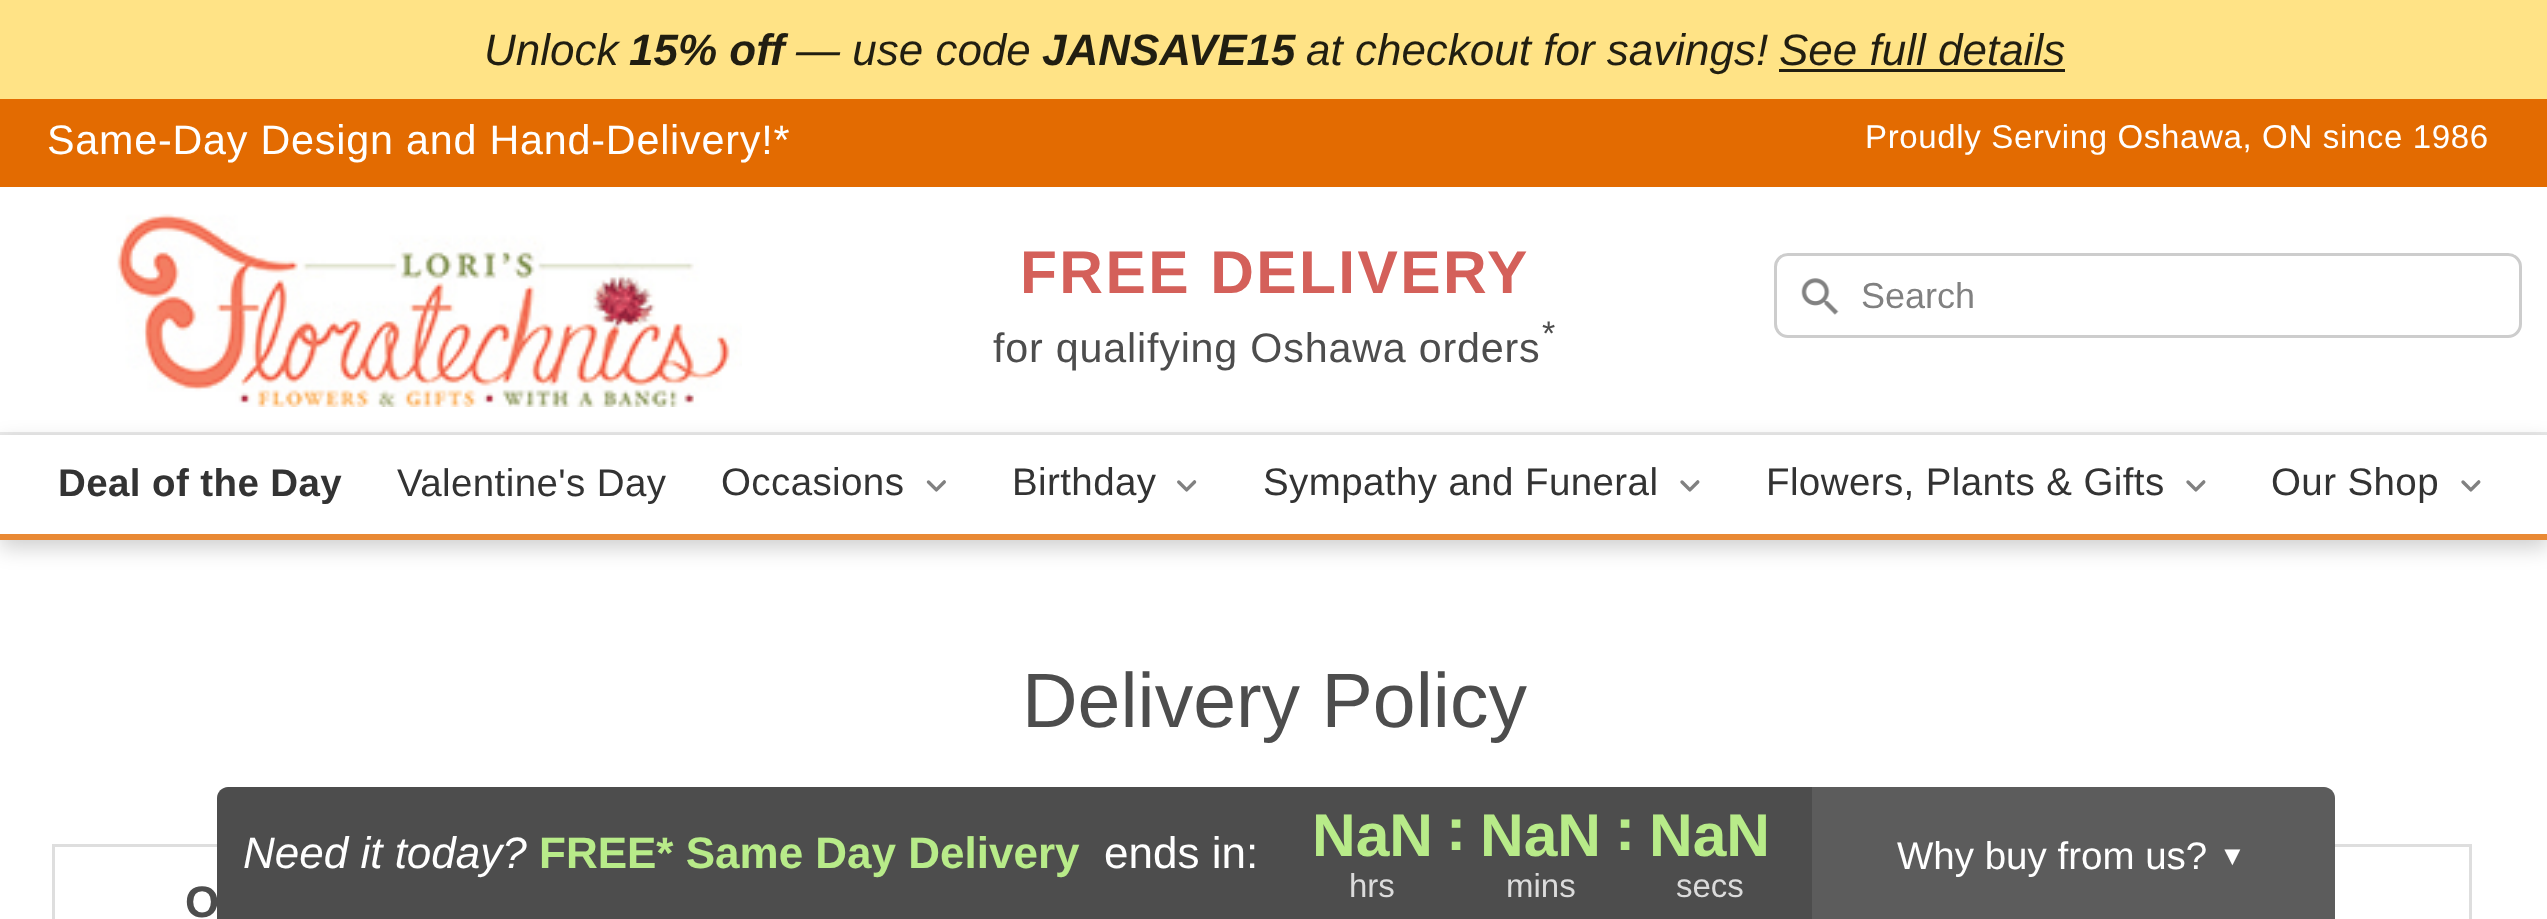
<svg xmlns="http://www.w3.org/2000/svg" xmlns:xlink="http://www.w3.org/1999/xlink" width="2547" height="919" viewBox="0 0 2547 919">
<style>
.cls-1{font:italic 44px Liberation Sans;fill:#211e11}
.cls-2{font:italic bold 44px Liberation Sans;fill:#211e11}
.cls-3{font:41.25px Liberation Sans;letter-spacing:0.8px;fill:#ffffff}
.cls-4{font:33px Liberation Sans;letter-spacing:0.65px;fill:#ffffff}
.cls-5{font:bold 60.5px Liberation Sans;letter-spacing:2.4px;fill:#d4605a}
.cls-6{font:34px Liberation Sans;letter-spacing:0.8px;fill:#4d4d4d}
.cls-7{font:41.25px Liberation Sans;letter-spacing:0.8px;fill:#4d4d4d}
.cls-8{font:36px Liberation Sans;fill:#818181}
.cls-9{font:bold 38.5px Liberation Sans;letter-spacing:0.4px;fill:#333333}
.cls-10{font:38.5px Liberation Sans;letter-spacing:0.4px;fill:#333333}
.cls-11{font:77px Liberation Sans;fill:#4d4d4d}
.cls-12{font:bold 44px Liberation Sans;fill:#4d4d4d}
.cls-13{font:italic 44px Liberation Sans;fill:#ffffff}
.cls-14{font:bold 44px Liberation Sans;fill:#b8eb89}
.cls-15{font:44px Liberation Sans;fill:#ffffff}
.cls-16{font:bold 60.5px Liberation Sans;fill:#b8eb89}
.cls-17{font:33px Liberation Sans;fill:#dbdbdb}
.cls-18{font:38.5px Liberation Sans;fill:#ffffff}
.cls-19{font:27px Liberation Sans;fill:#ffffff}
</style>
<defs>
<clipPath id="clip1"><path d="M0 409H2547V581H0ZM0 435H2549V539H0Z" clip-rule="evenodd"/></clipPath>
</defs>
<rect width="100%" height="100%" fill="#ffffff"/>
<rect fill="#ffe386" x="0" y="0" width="2547" height="99"/>
<rect fill="#211e11" x="1779" y="69" width="286" height="3"/>
<rect fill="#e36b01" x="0" y="99" width="2547" height="88"/>
<rect fill="#eaeaea" x="0" y="432" width="2547" height="3"/>
<image xlink:href="image0.png" x="116" y="213" width="626" height="194"/>
<image xlink:href="image1.png" x="1801" y="278" width="38" height="37"/>
<rect fill="none" stroke="#cdcdcd" stroke-width="3" x="1775.5" y="254.5" width="745" height="82" rx="12.5"/>
<g clip-path="url(#clip1)">
<rect fill="#000000" fill-opacity="0.2" filter="blur(11px)" x="0" y="443" width="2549" height="104"/>
</g>
<rect fill="#e98934" x="0" y="534" width="2547" height="6"/>
<image xlink:href="image2.png" x="926" y="480" width="20" height="12"/>
<image xlink:href="image3.png" x="1177" y="480" width="20" height="12"/>
<image xlink:href="image4.png" x="1680" y="480" width="20" height="12"/>
<image xlink:href="image4.png" x="2186" y="480" width="20" height="12"/>
<image xlink:href="image4.png" x="2461" y="480" width="20" height="12"/>
<rect fill="none" stroke="#dedede" stroke-width="3" x="53.5" y="845.5" width="572" height="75"/>
<rect fill="none" stroke="#dedede" stroke-width="3" x="1899.5" y="845.5" width="571" height="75"/>
<path fill="#4d4d4d" d="M228 787H1812V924H217V798C217 792 222 787 228 787Z"/>
<path fill="#5c5c5c" d="M1812 787H2324C2330 787 2335 792 2335 798V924H1812Z"/>
<text class="cls-1" x="484" y="65">Unlock</text>
<text class="cls-2" x="629" y="65">15% off</text>
<text class="cls-1" x="796" y="65">— use code</text>
<text class="cls-2" x="1042" y="65">JANSAVE15</text>
<text class="cls-1" x="1306" y="65">at checkout for savings!</text>
<text class="cls-1" x="1779" y="65">See full details</text>
<text class="cls-3" x="47" y="154">Same-Day Design and Hand-Delivery!*</text>
<text class="cls-4" x="1865" y="148">Proudly Serving Oshawa, ON since 1986</text>
<text class="cls-5" x="1020" y="293">FREE DELIVERY</text>
<text class="cls-6" x="1542" y="345">*</text>
<text class="cls-7" x="993" y="362">for qualifying Oshawa orders</text>
<text class="cls-8" x="1861" y="308">Search</text>
<text class="cls-9" x="58" y="496">Deal of the Day</text>
<text class="cls-10" x="397" y="496">Valentine's Day</text>
<text class="cls-10" x="721" y="495">Occasions</text>
<text class="cls-10" x="1012" y="495">Birthday</text>
<text class="cls-10" x="1263" y="495">Sympathy and Funeral</text>
<text class="cls-10" x="1766" y="495">Flowers, Plants &amp; Gifts</text>
<text class="cls-10" x="2271" y="495">Our Shop</text>
<text class="cls-11" x="1022" y="727">Delivery Policy</text>
<text class="cls-12" x="185" y="917">O</text>
<text class="cls-13" x="243" y="868">Need it today?</text>
<text class="cls-14" x="539" y="868">FREE* Same Day Delivery</text>
<text class="cls-15" x="1104" y="868">ends in:</text>
<text class="cls-16" x="1312" y="856">NaN</text>
<text class="cls-17" x="1349" y="897">hrs</text>
<text class="cls-16" x="1446" y="850">:</text>
<text class="cls-16" x="1480" y="856">NaN</text>
<text class="cls-17" x="1506" y="897">mins</text>
<text class="cls-16" x="1615" y="850">:</text>
<text class="cls-16" x="1649" y="856">NaN</text>
<text class="cls-17" x="1676" y="897">secs</text>
<text class="cls-18" x="1897" y="869">Why buy from us?</text>
<text class="cls-19" x="2219" y="865">▼</text>
</svg>
